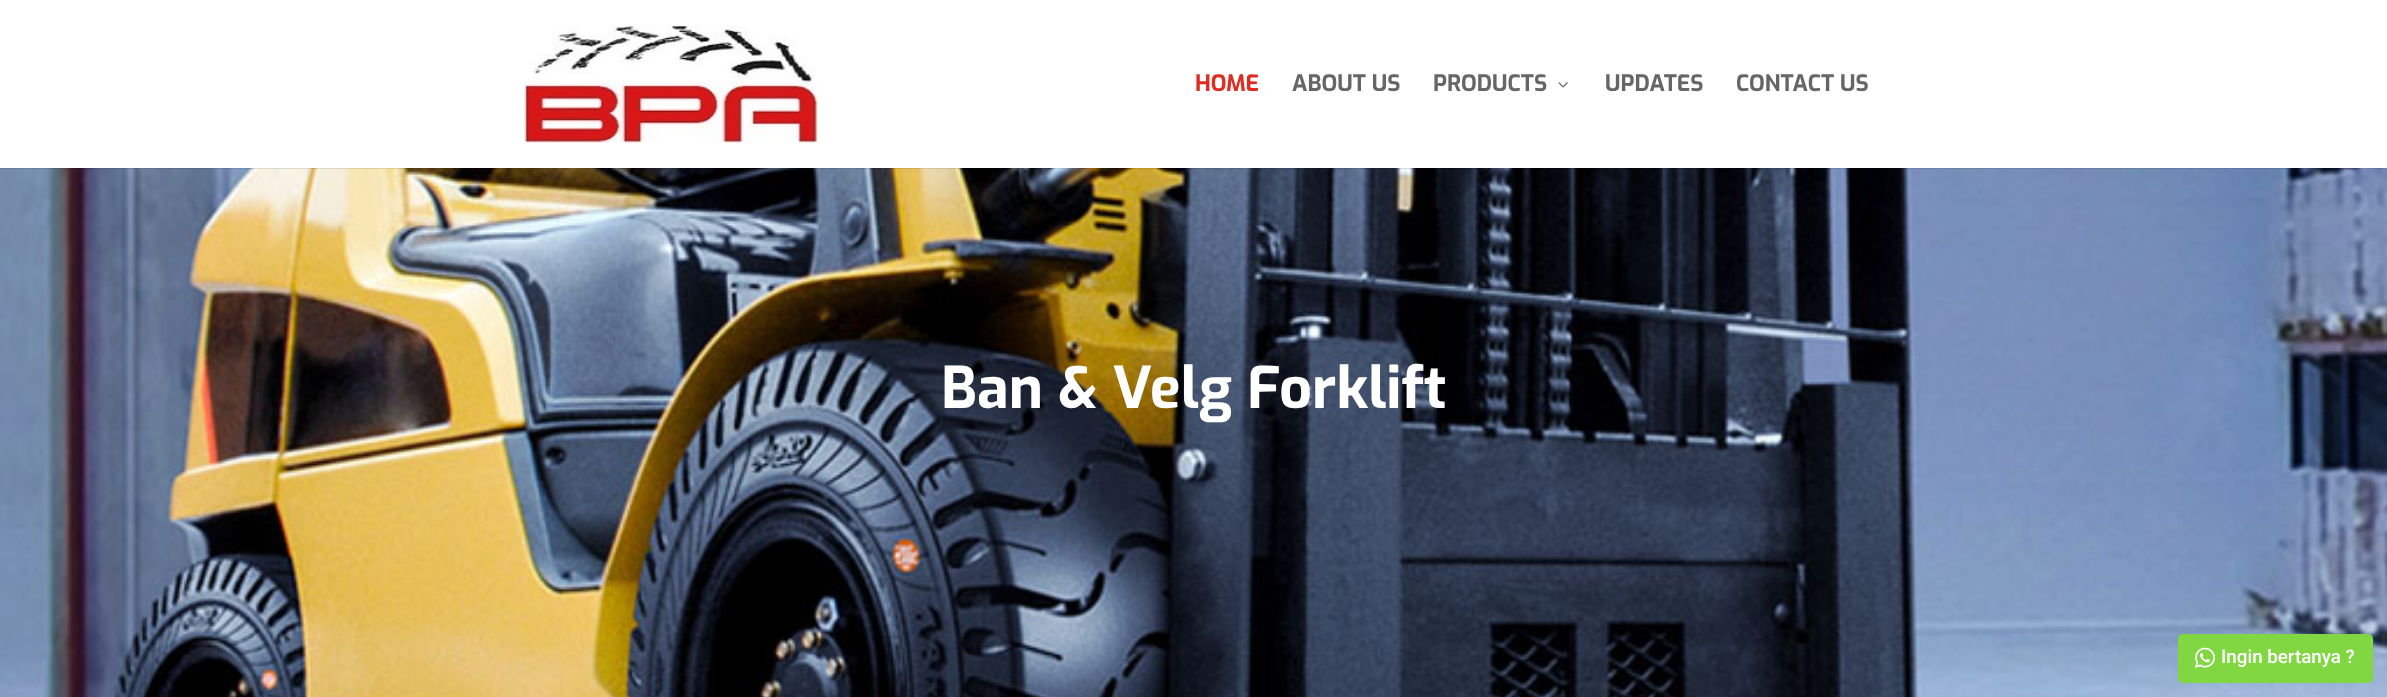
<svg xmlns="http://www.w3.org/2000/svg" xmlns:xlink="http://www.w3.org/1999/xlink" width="2387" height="697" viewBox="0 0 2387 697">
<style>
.cls-1{font:bold 22.5px Exo;fill:#e02b20}
.cls-2{font:bold 22.5px Exo;fill:#666666}
.cls-3{font:bold 57.5px Exo;fill:#ffffff}
.cls-4{font:500 18.75px Roboto;fill:#ffffff}
</style>
<rect width="100%" height="100%" fill="#ffffff"/>
<image xlink:href="image2.png" x="0" y="168" width="2387" height="529"/>
<path fill="#000000" fill-opacity="0.1" d="M0 168V169H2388V1V168Z"/>
<image xlink:href="image0.png" x="524" y="25" width="294" height="118"/>
<image xlink:href="image1.png" x="1558" y="82" width="10" height="6"/>
<rect fill="#81d742" x="2178" y="634" width="195" height="49" rx="5"/>
<image xlink:href="image3.png" x="2195" y="647" width="20" height="21"/>
<text class="cls-1" x="1195" y="91">HOME</text>
<text class="cls-2" x="1292" y="91">ABOUT US</text>
<text class="cls-2" x="1433" y="91">PRODUCTS</text>
<text class="cls-2" x="1605" y="91">UPDATES</text>
<text class="cls-2" x="1736" y="91">CONTACT US</text>
<text class="cls-3" x="941" y="408">Ban &amp; Velg Forklift</text>
<text class="cls-4" x="2221" y="663">Ingin bertanya ?</text>
</svg>
